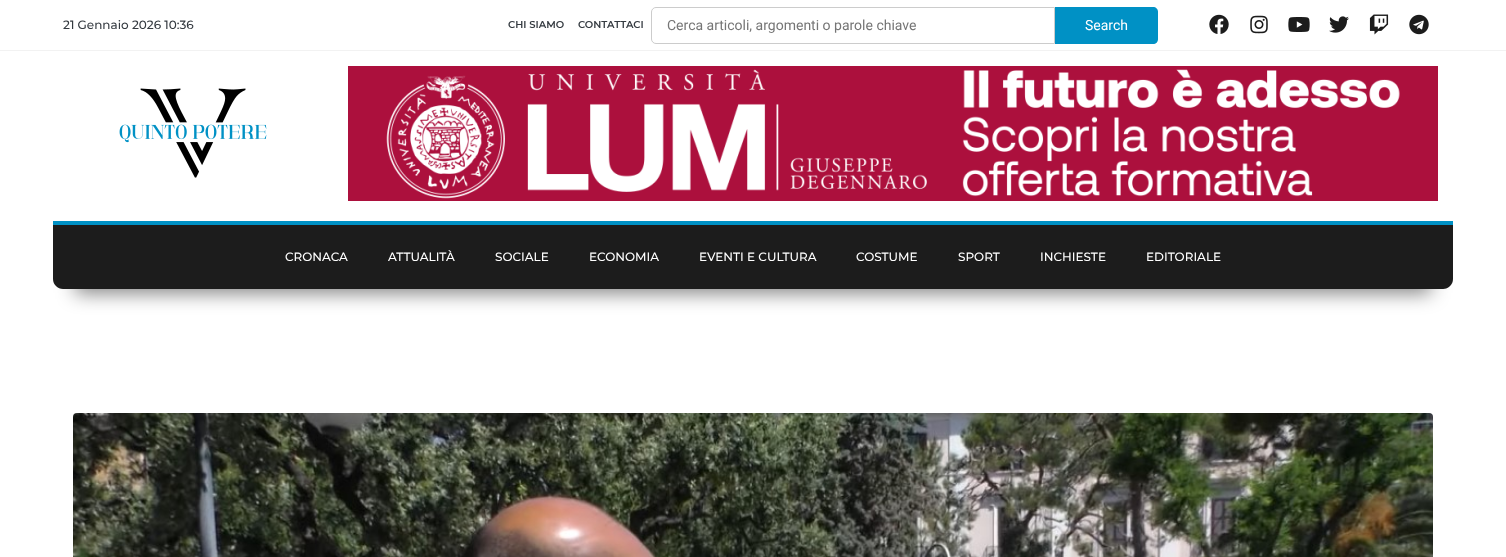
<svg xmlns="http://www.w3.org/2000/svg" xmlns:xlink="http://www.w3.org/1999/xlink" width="1506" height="557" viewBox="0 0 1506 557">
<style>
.cls-1{font:500 12px Montserrat;fill:#343a40}
.cls-2{font:600 10px Montserrat;fill:#343a40}
.cls-3{font:14px Roboto;fill:#757575}
.cls-4{font:14px Roboto;fill:#ffffff}
.cls-5{font:500 12px Montserrat;fill:#ffffff}
</style>
<rect width="100%" height="100%" fill="#ffffff"/>
<rect fill="#f2f2f2" x="0" y="50" width="1506" height="1"/>
<path fill="none" stroke="#cccccc" d="M656 7.5H1054.5V43.5H656C653.5 43.5 651.5 41.5 651.5 39V12C651.5 9.5 653.5 7.5 656 7.5Z"/>
<path fill="#0091c5" d="M1055 7H1153C1156 7 1158 9 1158 12V39C1158 42 1156 44 1153 44H1055Z"/>
<image xlink:href="image0.png" x="1209" y="14" width="20" height="20"/>
<image xlink:href="image1.png" x="1250" y="15" width="18" height="19"/>
<image xlink:href="image2.png" x="1288" y="17" width="22" height="15"/>
<image xlink:href="image3.png" x="1329" y="16" width="20" height="17"/>
<image xlink:href="image4.png" x="1369" y="14" width="20" height="21"/>
<image xlink:href="image5.png" x="1409" y="14" width="20" height="21"/>
<image xlink:href="image6.png" x="119" y="88" width="148" height="90"/>
<image xlink:href="image7.png" x="348" y="66" width="1090" height="135"/>
<rect fill="#000000" fill-opacity="0.5" filter="blur(9.5px)" x="75" y="269" width="1356" height="24"/>
<path fill="#1c1c1c" d="M53 225H1453V279C1453 284.5 1448.5 289 1443 289H63C57.5 289 53 284.5 53 279Z"/>
<rect fill="#0091c5" x="53" y="221" width="1400" height="4"/>
<image xlink:href="image8.png" x="73" y="413" width="1360" height="144"/>
<text class="cls-1" x="63" y="29">21 Gennaio 2026 10:36</text>
<text class="cls-2" x="508" y="28">CHI SIAMO</text>
<text class="cls-2" x="578" y="28">CONTATTACI</text>
<text class="cls-3" x="667" y="30">Cerca articoli, argomenti o parole chiave</text>
<text class="cls-4" x="1085" y="30">Search</text>
<text class="cls-5" x="285" y="261">CRONACA</text>
<text class="cls-5" x="388" y="261">ATTUALITÀ</text>
<text class="cls-5" x="495" y="261">SOCIALE</text>
<text class="cls-5" x="589" y="261">ECONOMIA</text>
<text class="cls-5" x="699" y="261">EVENTI E CULTURA</text>
<text class="cls-5" x="856" y="261">COSTUME</text>
<text class="cls-5" x="958" y="261">SPORT</text>
<text class="cls-5" x="1040" y="261">INCHIESTE</text>
<text class="cls-5" x="1146" y="261">EDITORIALE</text>
</svg>
